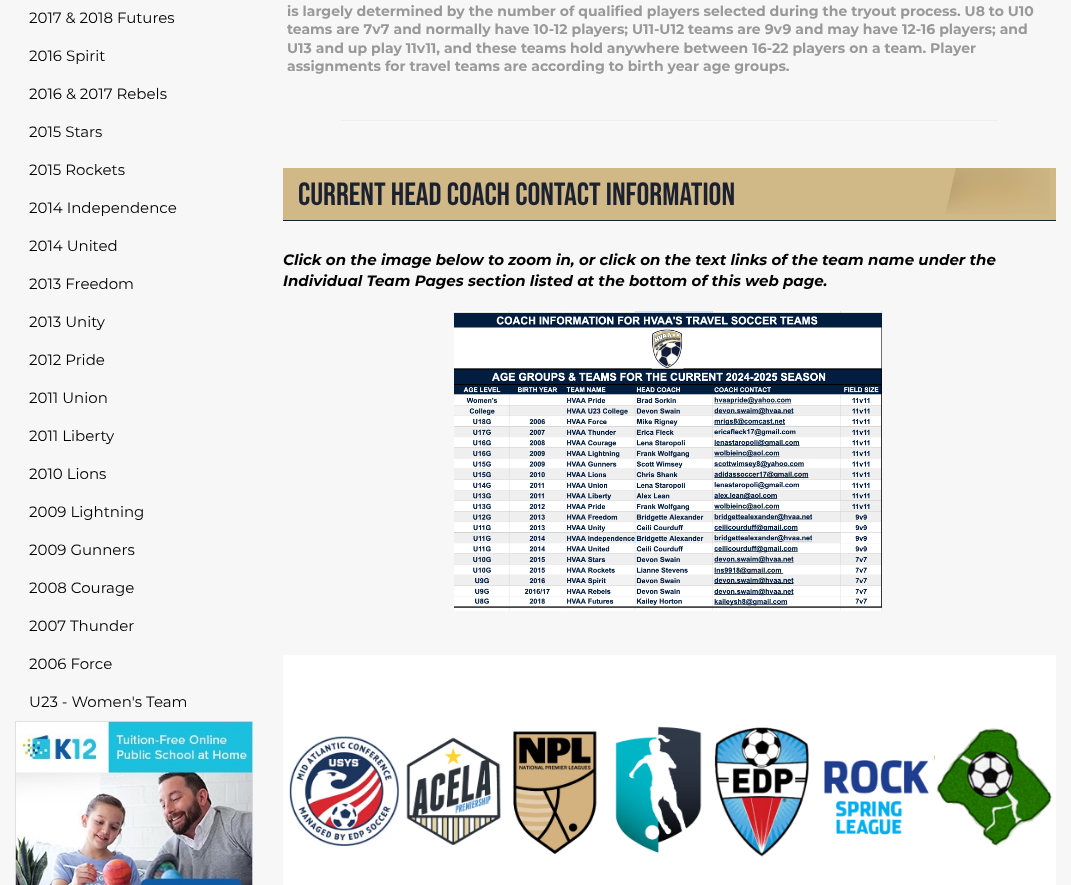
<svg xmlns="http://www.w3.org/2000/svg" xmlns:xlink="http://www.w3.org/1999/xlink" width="1071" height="885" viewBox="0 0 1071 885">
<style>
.cls-1{font:15px Montserrat;fill:#000000}
.cls-2{font:bold 14px Montserrat;fill:#999999}
.cls-3{font:bold 32px Bebas Neue;fill:#1c2130}
.cls-4{font:italic bold 15px Montserrat;fill:#000000}
</style>
<rect width="100%" height="100%" fill="#f7f7f7"/>
<image xlink:href="image0.png" x="15" y="721" width="238" height="164"/>
<rect fill="#eeeeee" x="341" y="120" width="657" height="1"/>
<rect fill="#d0b887" x="283" y="168" width="773" height="52"/>
<image xlink:href="image1.png" x="946" y="168" width="104" height="46"/>
<rect fill="#1c2130" x="283" y="220" width="773" height="1"/>
<image xlink:href="image2.png" x="454" y="311" width="428" height="300"/>
<image xlink:href="image3.png" x="283" y="655" width="773" height="230"/>
<text class="cls-1" x="29" y="23">2017 &amp; 2018 Futures</text>
<text class="cls-1" x="29" y="61">2016 Spirit</text>
<text class="cls-1" x="29" y="99">2016 &amp; 2017 Rebels</text>
<text class="cls-1" x="29" y="137">2015 Stars</text>
<text class="cls-1" x="29" y="175">2015 Rockets</text>
<text class="cls-1" x="29" y="213">2014 Independence</text>
<text class="cls-1" x="29" y="251">2014 United</text>
<text class="cls-1" x="29" y="289">2013 Freedom</text>
<text class="cls-1" x="29" y="327">2013 Unity</text>
<text class="cls-1" x="29" y="365">2012 Pride</text>
<text class="cls-1" x="29" y="403">2011 Union</text>
<text class="cls-1" x="29" y="441">2011 Liberty</text>
<text class="cls-1" x="29" y="479">2010 Lions</text>
<text class="cls-1" x="29" y="517">2009 Lightning</text>
<text class="cls-1" x="29" y="555">2009 Gunners</text>
<text class="cls-1" x="29" y="593">2008 Courage</text>
<text class="cls-1" x="29" y="631">2007 Thunder</text>
<text class="cls-1" x="29" y="669">2006 Force</text>
<text class="cls-1" x="29" y="707">U23 - Women's Team</text>
<text class="cls-2"><tspan x="287" y="16">is largely determined by the number of qualified players selected during the tryout process. U8 to U10</tspan><tspan x="287" y="34">teams are 7v7 and normally have 10-12 players; U11-U12 teams are 9v9 and may have 12-16 players; and</tspan><tspan x="287" y="53">U13 and up play 11v11, and these teams hold anywhere between 16-22 players on a team. Player</tspan><tspan x="287" y="71">assignments for travel teams are according to birth year age groups.</tspan></text>
<text class="cls-3" x="298" y="205">CURRENT HEAD COACH CONTACT INFORMATION</text>
<text class="cls-4"><tspan x="283" y="265">Click on the image below to zoom in, or click on the text links of the team name under the</tspan><tspan x="283" y="286">Individual Team Pages section listed at the bottom of this web page.</tspan></text>
</svg>
